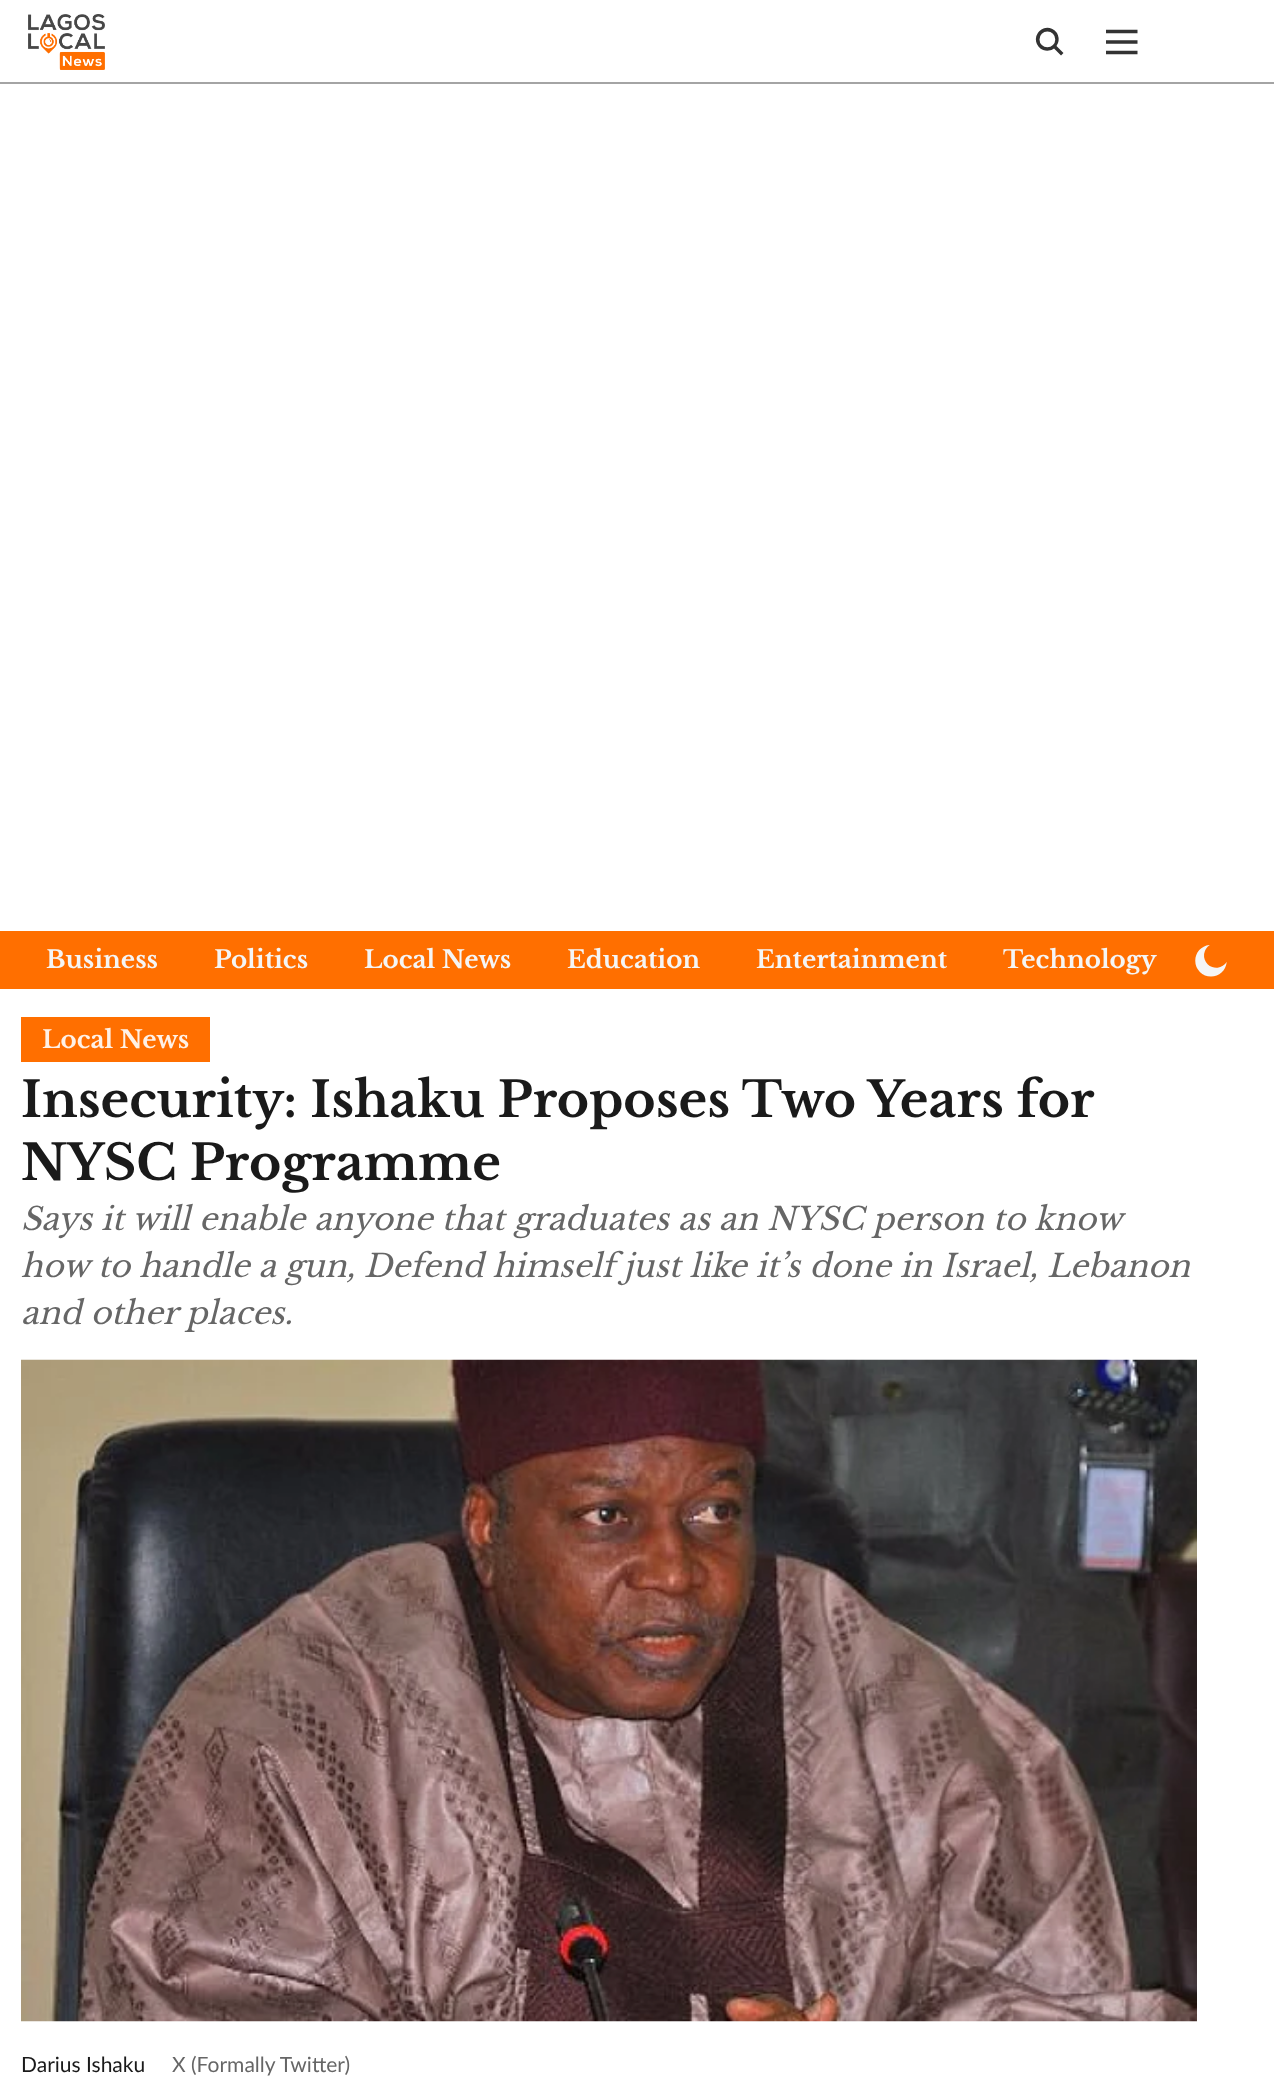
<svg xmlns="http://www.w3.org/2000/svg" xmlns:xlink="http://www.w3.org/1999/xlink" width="1274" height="2092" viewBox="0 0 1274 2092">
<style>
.cls-1{font:bold 24.5px Libre Baskerville;fill:#f5f5f5}
.cls-2{font:bold 24.5px Libre Baskerville;fill:#fff1e6}
.cls-3{font:bold 49px Libre Baskerville;fill:#1a1a1a}
.cls-4{font:italic 31.5px Libre Baskerville;fill:#666666}
.cls-5{font:21px Lato;fill:#1a1a1a}
.cls-6{font:21px Lato;fill:#666666}
</style>
<rect width="100%" height="100%" fill="#ffffff"/>
<rect fill="#a4a4a4" x="0" y="82" width="1274" height="2"/>
<image xlink:href="image0.png" x="28" y="14" width="77" height="56"/>
<image xlink:href="image1.png" x="1035" y="27" width="29" height="29"/>
<image xlink:href="image2.png" x="1106" y="29" width="32" height="26"/>
<rect fill="#ff6f00" x="0" y="931" width="1274" height="58"/>
<image xlink:href="image3.png" x="1195" y="945" width="32" height="32"/>
<rect fill="#ff6f00" x="21" y="1017" width="189" height="45"/>
<image xlink:href="image4.png" x="21" y="1359" width="1176" height="663"/>
<text class="cls-1" x="46" y="968">Business</text>
<text class="cls-1" x="214" y="968">Politics</text>
<text class="cls-1" x="364" y="968">Local News</text>
<text class="cls-1" x="567" y="968">Education</text>
<text class="cls-1" x="756" y="968">Entertainment</text>
<text class="cls-1" x="1003" y="968">Technology</text>
<text class="cls-2" x="42" y="1048">Local News</text>
<text class="cls-3"><tspan x="21" y="1117">Insecurity: Ishaku Proposes Two Years for</tspan><tspan x="21" y="1180">NYSC Programme</tspan></text>
<text class="cls-4"><tspan x="21" y="1230">Says it will enable anyone that graduates as an NYSC person to know</tspan><tspan x="21" y="1277">how to handle a gun, Defend himself just like it’s done in Israel, Lebanon</tspan><tspan x="21" y="1324">and other places.</tspan></text>
<text class="cls-5" x="21" y="2072">Darius Ishaku</text>
<text class="cls-6" x="172" y="2072">X (Formally Twitter)</text>
</svg>
